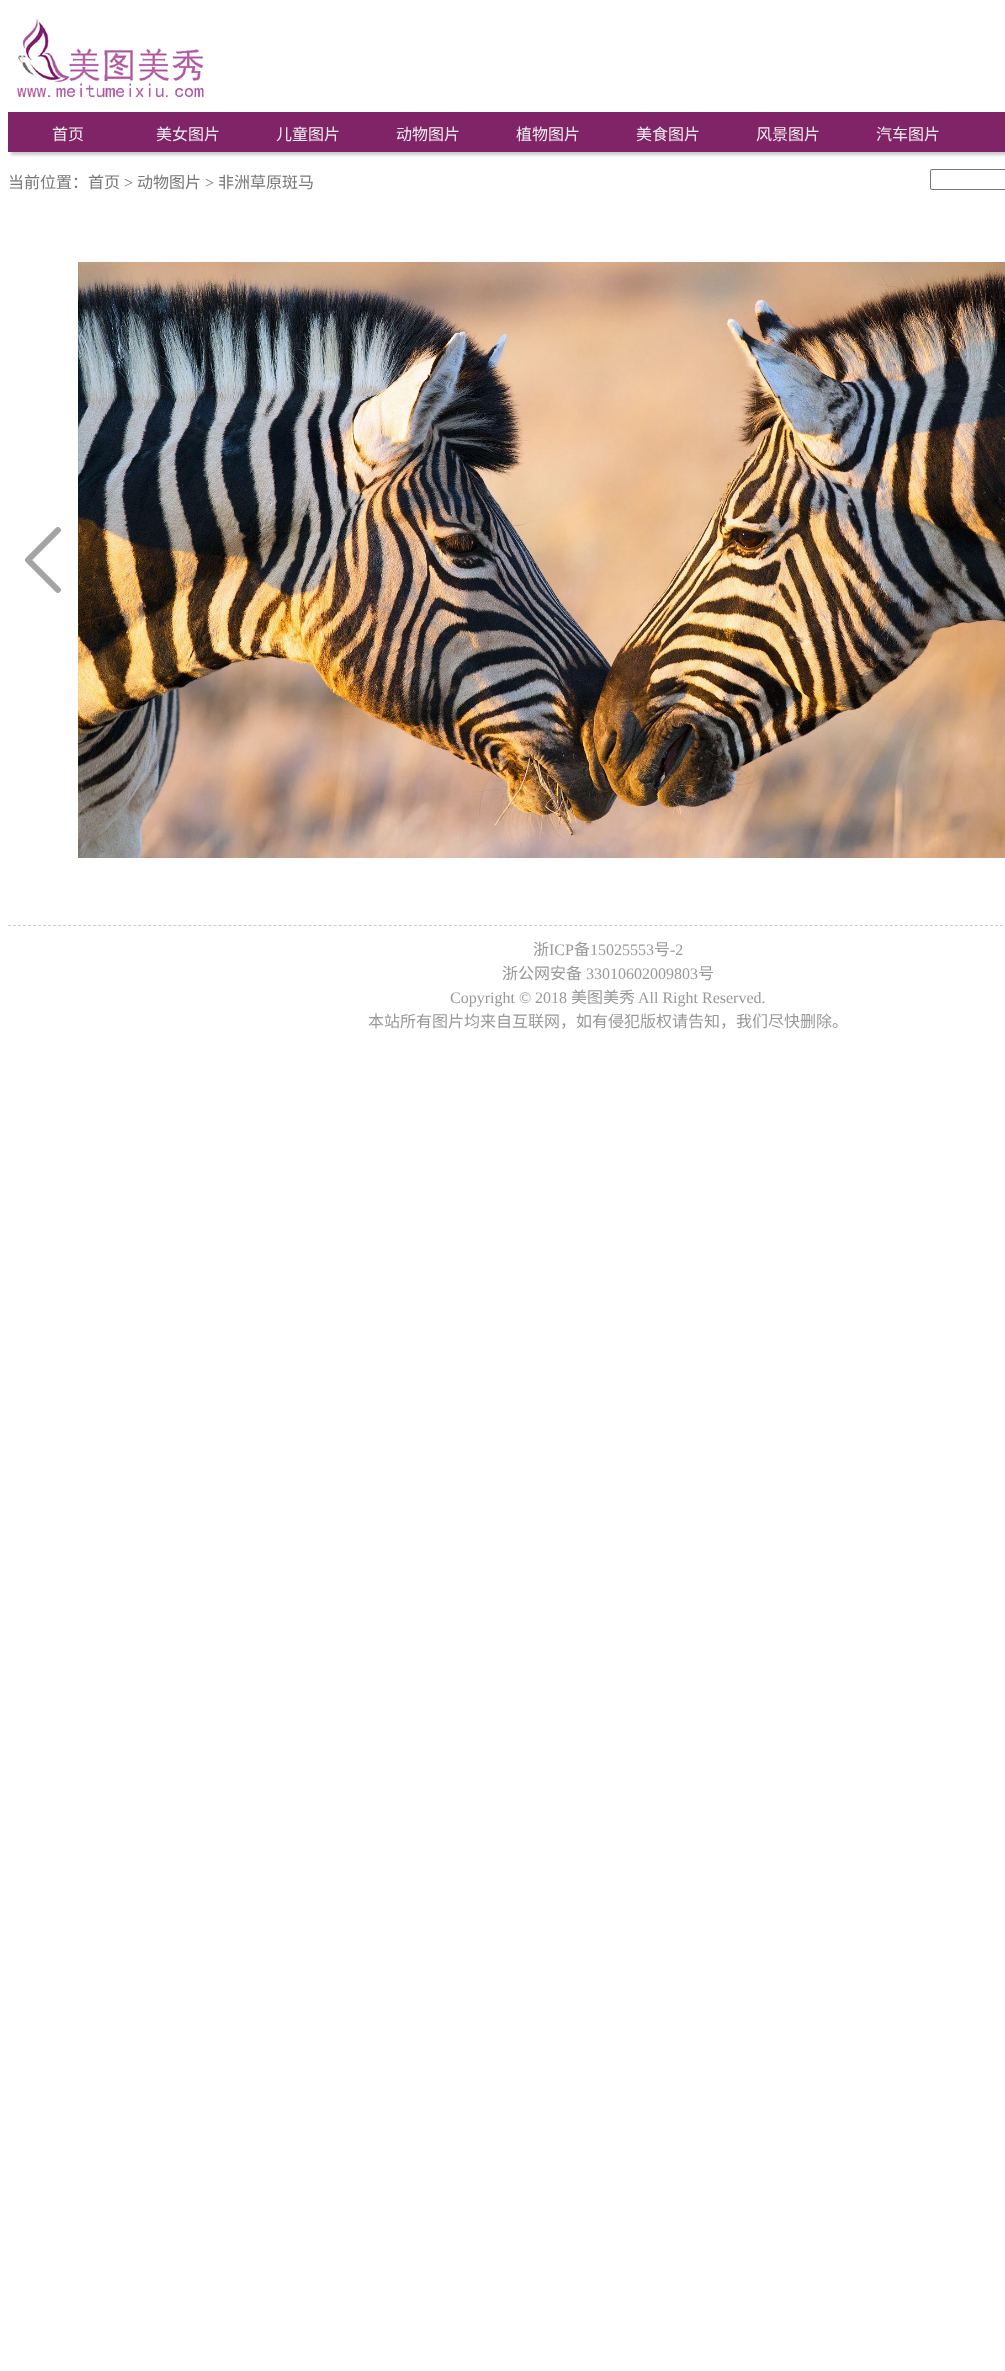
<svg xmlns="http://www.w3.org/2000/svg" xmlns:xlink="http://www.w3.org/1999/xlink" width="1005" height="2371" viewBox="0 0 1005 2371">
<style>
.cls-1{font:16px Noto Sans CJK SC;fill:#eeeeee}
.cls-2{font:16px Noto Sans CJK SC;fill:#777777}
.cls-3{font:16px Liberation Serif;fill:#777777}
.cls-4{font:16px Noto Sans CJK SC;fill:#999999}
.cls-5{font:16px Liberation Serif;fill:#999999}
</style>
<rect width="100%" height="100%" fill="#ffffff"/>
<image xlink:href="image0.png" x="17" y="18" width="187" height="80"/>
<rect fill="#cccccc" filter="blur(1.5px)" x="11" y="115" width="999" height="40"/>
<rect fill="#812367" x="8" y="112" width="997" height="40"/>
<rect fill="none" stroke="#767676" x="930.5" y="169.5" width="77" height="20" rx="1.5"/>
<image xlink:href="image1.png" x="25" y="527" width="36" height="66"/>
<image xlink:href="image2.png" x="78" y="262" width="927" height="596"/>
<path fill="none" stroke="#cccccc" stroke-dasharray="3 2.01" d="M8 925.5H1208"/>
<text class="cls-1" x="52" y="140">首页</text>
<text class="cls-1" x="156" y="140">美女图片</text>
<text class="cls-1" x="276" y="140">儿童图片</text>
<text class="cls-1" x="396" y="140">动物图片</text>
<text class="cls-1" x="516" y="140">植物图片</text>
<text class="cls-1" x="636" y="140">美食图片</text>
<text class="cls-1" x="756" y="140">风景图片</text>
<text class="cls-1" x="876" y="140">汽车图片</text>
<text class="cls-2" x="8" y="188">当前位置：首页</text>
<text class="cls-3" x="124" y="188">&gt;</text>
<text class="cls-2" x="137" y="188">动物图片</text>
<text class="cls-3" x="205" y="188">&gt;</text>
<text class="cls-2" x="218" y="188">非洲草原斑马</text>
<text class="cls-4" x="533" y="955">浙</text>
<text class="cls-5" x="549" y="955">ICP</text>
<text class="cls-4" x="574" y="955">备</text>
<text class="cls-5" x="590" y="955">15025553</text>
<text class="cls-4" x="654" y="955">号</text>
<text class="cls-5" x="670" y="955">-2</text>
<text class="cls-4" x="502" y="979">浙公网安备</text>
<text class="cls-5" x="586" y="979">33010602009803</text>
<text class="cls-4" x="698" y="979">号</text>
<text class="cls-5" x="450" y="1003">Copyright © 2018</text>
<text class="cls-4" x="571" y="1003">美图美秀</text>
<text class="cls-5" x="638" y="1003">All Right Reserved.</text>
<text class="cls-4" x="368" y="1027">本站所有图片均来自互联网，如有侵犯版权请告知，我们尽快删除。</text>
</svg>
